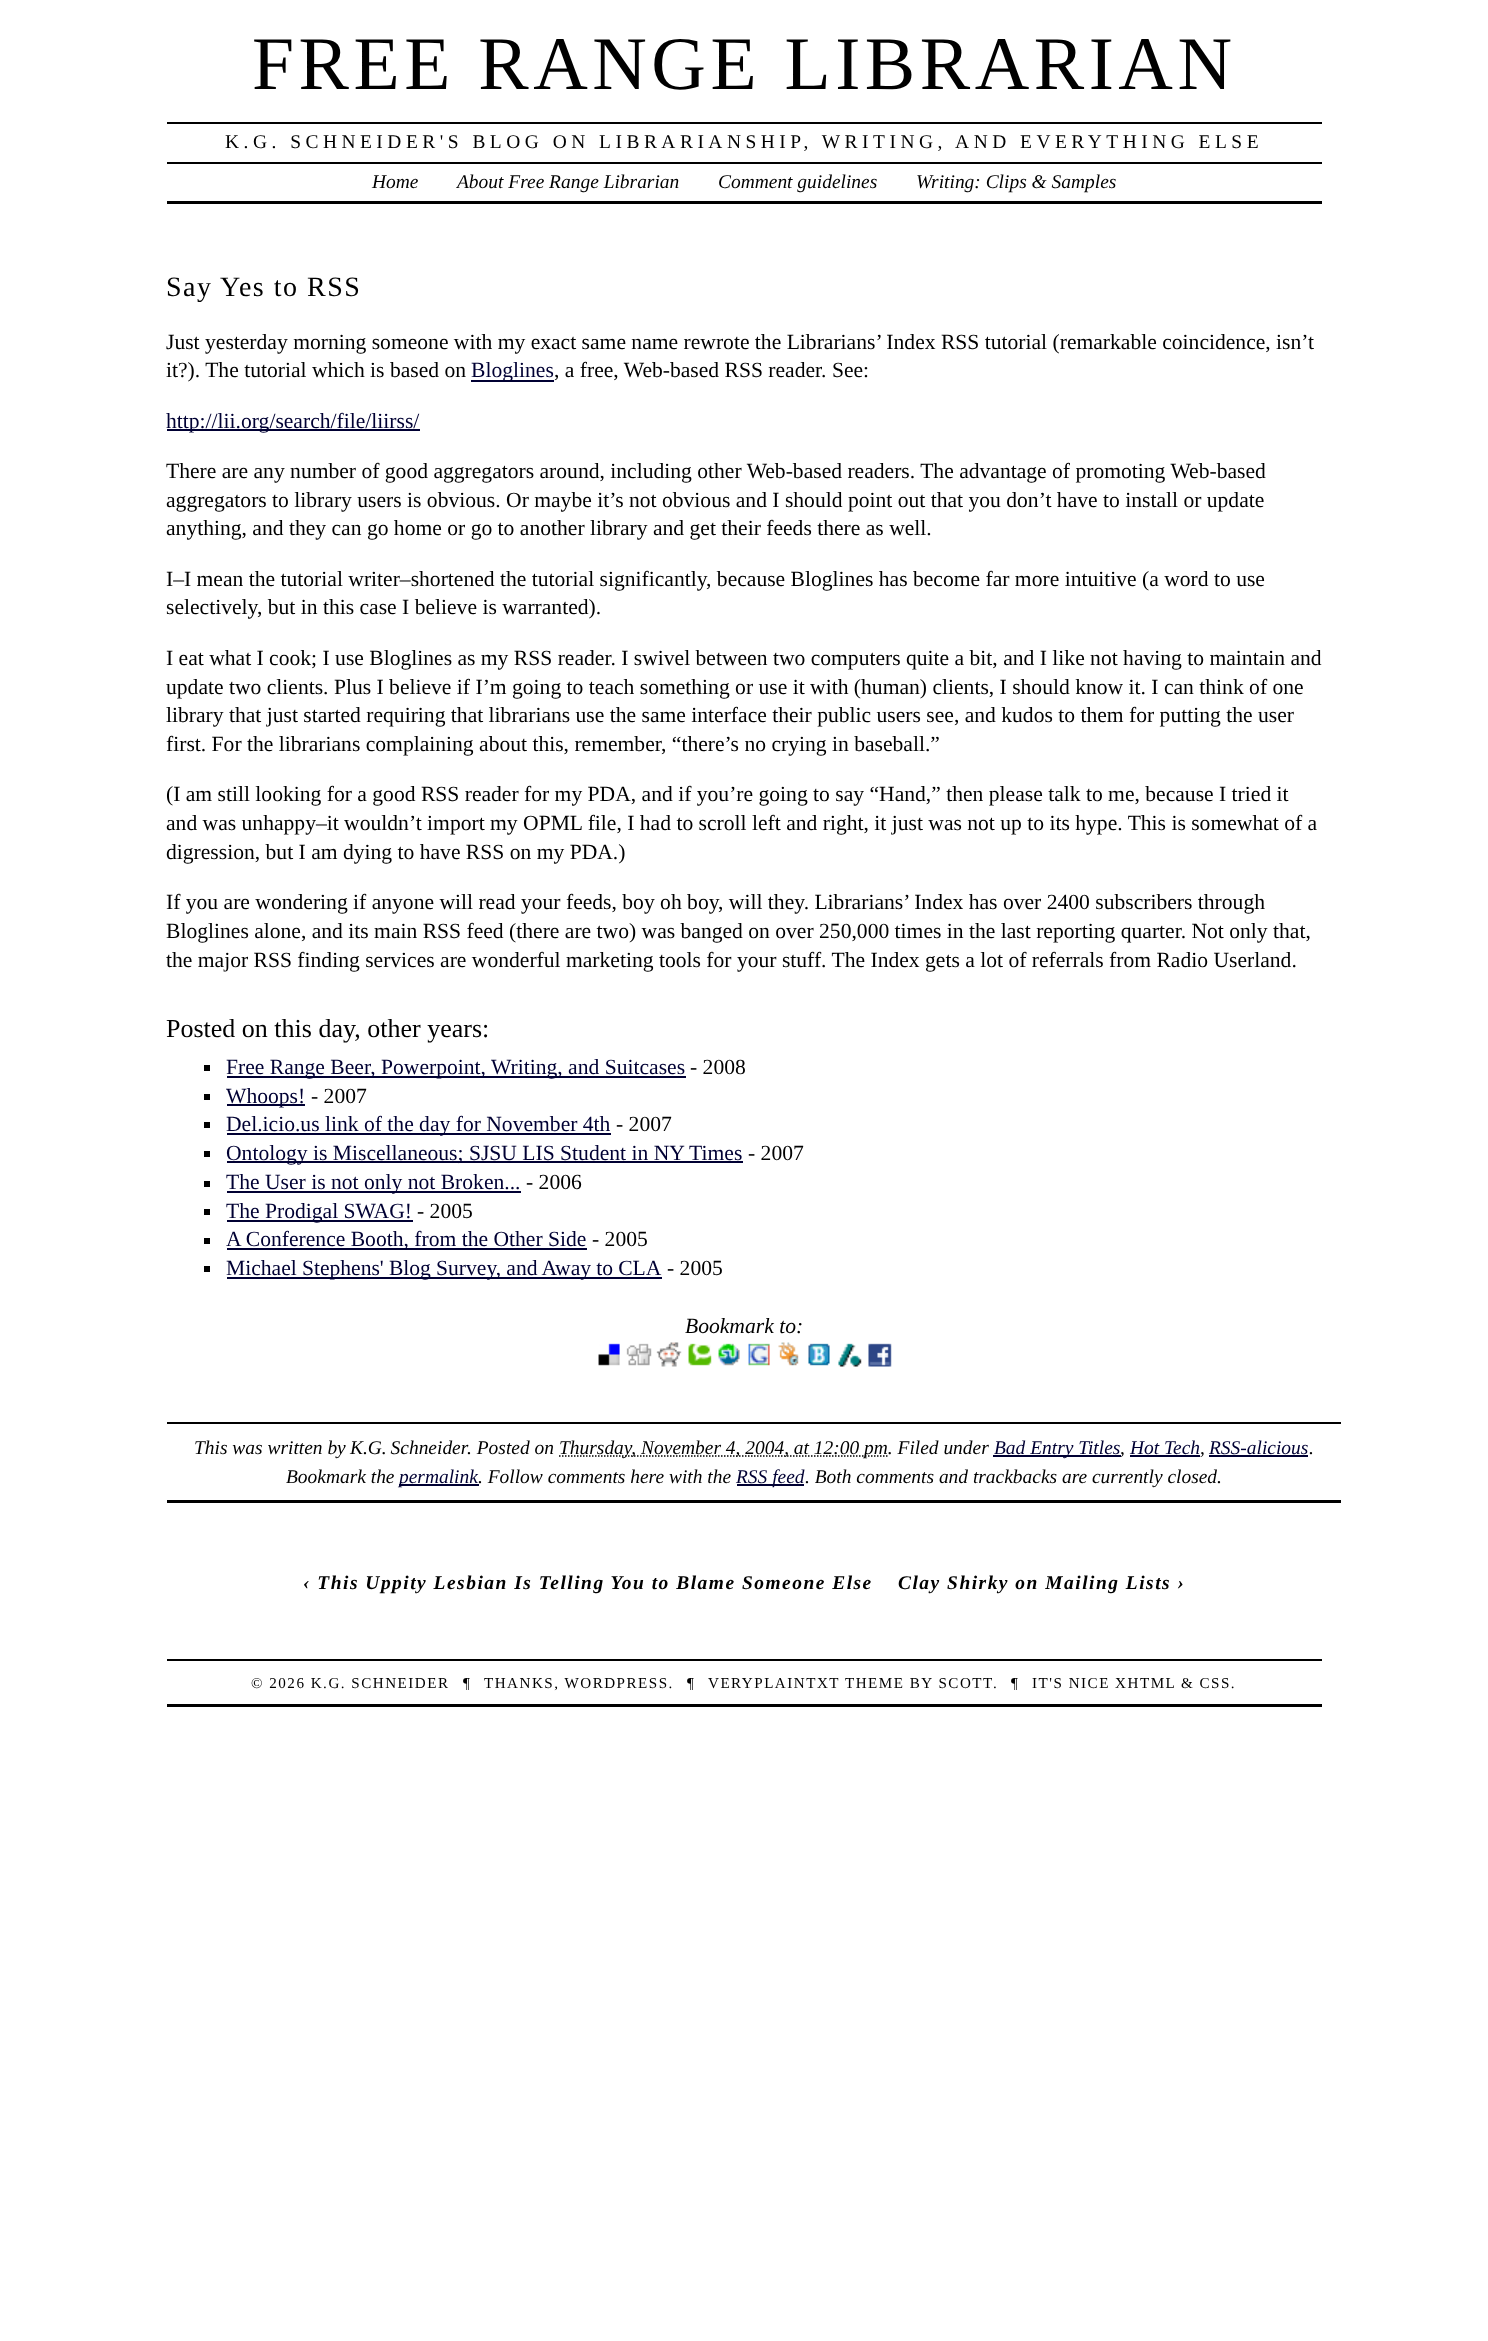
<svg xmlns="http://www.w3.org/2000/svg" xmlns:xlink="http://www.w3.org/1999/xlink" width="1488" height="2341" viewBox="0 0 1488 2341">
<style>
.cls-1{font:75.6px Liberation Serif;letter-spacing:4.5px;fill:#000000}
.cls-2{font:19.45px Liberation Serif;letter-spacing:4.5px;fill:#000000}
.cls-3{font:italic 19.45px Liberation Serif;fill:#000000}
.cls-4{font:28px Liberation Serif;letter-spacing:1.5px;fill:#000000}
.cls-5{font:21.6px Liberation Serif;fill:#000000}
.cls-6{font:21.6px Liberation Serif;fill:#000033}
.cls-7{font:26px Liberation Serif;fill:#000000}
.cls-8{font:italic 21.6px Liberation Serif;fill:#000000}
.cls-9{font:italic 19.45px Liberation Serif;fill:#000033}
.cls-10{font:italic bold 19.45px Liberation Serif;letter-spacing:1.5px;fill:#000000}
.cls-11{font:15.1px Liberation Serif;letter-spacing:1.5px;fill:#000000}
</style>
<rect width="100%" height="100%" fill="#ffffff"/>
<rect fill="#000000" x="167" y="122" width="1155" height="2"/>
<rect fill="#000000" x="167" y="162" width="1155" height="2"/>
<rect fill="#000000" x="167" y="201" width="1155" height="3"/>
<rect fill="#000033" x="471" y="380" width="83" height="2"/>
<rect fill="#000033" x="167" y="429" width="253" height="2"/>
<rect fill="#000000" x="204" y="1065" width="6" height="6"/>
<rect fill="#000033" x="227" y="1076" width="459" height="2"/>
<rect fill="#000000" x="204" y="1094" width="6" height="6"/>
<rect fill="#000033" x="227" y="1104" width="78" height="2"/>
<rect fill="#000000" x="204" y="1122" width="6" height="6"/>
<rect fill="#000033" x="227" y="1133" width="384" height="2"/>
<rect fill="#000000" x="204" y="1151" width="6" height="6"/>
<rect fill="#000033" x="227" y="1161" width="516" height="2"/>
<rect fill="#000000" x="204" y="1181" width="6" height="6"/>
<rect fill="#000033" x="227" y="1191" width="294" height="2"/>
<rect fill="#000000" x="204" y="1209" width="6" height="6"/>
<rect fill="#000033" x="227" y="1220" width="186" height="2"/>
<rect fill="#000000" x="204" y="1238" width="6" height="6"/>
<rect fill="#000033" x="227" y="1248" width="360" height="2"/>
<rect fill="#000000" x="204" y="1266" width="6" height="6"/>
<rect fill="#000033" x="227" y="1277" width="435" height="2"/>
<image xlink:href="image0.png" x="598" y="1343" width="22" height="23"/>
<image xlink:href="image1.png" x="626" y="1343" width="26" height="23"/>
<image xlink:href="image2.png" x="656" y="1342" width="26" height="25"/>
<image xlink:href="image3.png" x="688" y="1343" width="24" height="23"/>
<image xlink:href="image4.png" x="718" y="1343" width="22" height="23"/>
<image xlink:href="image5.png" x="748" y="1343" width="22" height="23"/>
<image xlink:href="image6.png" x="778" y="1342" width="21" height="24"/>
<image xlink:href="image7.png" x="808" y="1343" width="22" height="23"/>
<image xlink:href="image8.png" x="838" y="1343" width="24" height="24"/>
<image xlink:href="image9.png" x="868" y="1343" width="24" height="24"/>
<rect fill="#000000" x="167" y="1422" width="1174" height="2"/>
<rect fill="#000000" x="167" y="1500" width="1174" height="3"/>
<path fill="none" stroke="#000000" stroke-width="1.5" stroke-dasharray="1.5 1.5" d="M559 1456H888"/>
<rect fill="#000033" x="993" y="1455" width="128" height="2"/>
<rect fill="#000033" x="1130" y="1455" width="70" height="2"/>
<rect fill="#000033" x="1209" y="1455" width="99" height="2"/>
<rect fill="#000033" x="399" y="1484" width="80" height="2"/>
<rect fill="#000033" x="737" y="1484" width="67" height="2"/>
<rect fill="#000000" x="167" y="1659" width="1155" height="2"/>
<rect fill="#000000" x="167" y="1704" width="1155" height="3"/>
<text class="cls-1" x="252" y="89">FREE RANGE LIBRARIAN</text>
<text class="cls-2" x="225" y="148">K.G. SCHNEIDER'S BLOG ON LIBRARIANSHIP, WRITING, AND EVERYTHING ELSE</text>
<text class="cls-3" x="372" y="188">Home</text>
<text class="cls-3" x="457" y="188">About Free Range Librarian</text>
<text class="cls-3" x="718" y="188">Comment guidelines</text>
<text class="cls-3" x="916" y="188">Writing: Clips &amp; Samples</text>
<text class="cls-4" x="166" y="296">Say Yes to RSS</text>
<text class="cls-5"><tspan x="166" y="349">Just yesterday morning someone with my exact same name rewrote the Librarians’ Index RSS tutorial (remarkable coincidence, isn’t</tspan><tspan x="166" y="377">it?). The tutorial which is based on</tspan></text>
<text class="cls-6" x="471" y="377">Bloglines</text>
<text class="cls-5" x="554" y="377">, a free, Web-based RSS reader. See:</text>
<text class="cls-6" x="166" y="428">http://lii.org/search/file/liirss/</text>
<text class="cls-5"><tspan x="166" y="478">There are any number of good aggregators around, including other Web-based readers. The advantage of promoting Web-based</tspan><tspan x="166" y="507">aggregators to library users is obvious. Or maybe it’s not obvious and I should point out that you don’t have to install or update</tspan><tspan x="166" y="535">anything, and they can go home or go to another library and get their feeds there as well.</tspan></text>
<text class="cls-5"><tspan x="166" y="586">I–I mean the tutorial writer–shortened the tutorial significantly, because Bloglines has become far more intuitive (a word to use</tspan><tspan x="166" y="614">selectively, but in this case I believe is warranted).</tspan></text>
<text class="cls-5"><tspan x="166" y="665">I eat what I cook; I use Bloglines as my RSS reader. I swivel between two computers quite a bit, and I like not having to maintain and</tspan><tspan x="166" y="694">update two clients. Plus I believe if I’m going to teach something or use it with (human) clients, I should know it. I can think of one</tspan><tspan x="166" y="722">library that just started requiring that librarians use the same interface their public users see, and kudos to them for putting the user</tspan><tspan x="166" y="751">first. For the librarians complaining about this, remember, “there’s no crying in baseball.”</tspan></text>
<text class="cls-5"><tspan x="166" y="801">(I am still looking for a good RSS reader for my PDA, and if you’re going to say “Hand,” then please talk to me, because I tried it</tspan><tspan x="166" y="830">and was unhappy–it wouldn’t import my OPML file, I had to scroll left and right, it just was not up to its hype. This is somewhat of a</tspan><tspan x="166" y="859">digression, but I am dying to have RSS on my PDA.)</tspan></text>
<text class="cls-5"><tspan x="166" y="909">If you are wondering if anyone will read your feeds, boy oh boy, will they. Librarians’ Index has over 2400 subscribers through</tspan><tspan x="166" y="938">Bloglines alone, and its main RSS feed (there are two) was banged on over 250,000 times in the last reporting quarter. Not only that,</tspan><tspan x="166" y="967">the major RSS finding services are wonderful marketing tools for your stuff. The Index gets a lot of referrals from Radio Userland.</tspan></text>
<text class="cls-7" x="166" y="1037">Posted on this day, other years:</text>
<text class="cls-6" x="226" y="1074">Free Range Beer, Powerpoint, Writing, and Suitcases</text>
<text class="cls-5" x="690" y="1074">- 2008</text>
<text class="cls-6" x="226" y="1103">Whoops!</text>
<text class="cls-5" x="311" y="1103">- 2007</text>
<text class="cls-6" x="226" y="1131">Del.icio.us link of the day for November 4th</text>
<text class="cls-5" x="616" y="1131">- 2007</text>
<text class="cls-6" x="226" y="1160">Ontology is Miscellaneous; SJSU LIS Student in NY Times</text>
<text class="cls-5" x="748" y="1160">- 2007</text>
<text class="cls-6" x="226" y="1189">The User is not only not Broken...</text>
<text class="cls-5" x="526" y="1189">- 2006</text>
<text class="cls-6" x="226" y="1218">The Prodigal SWAG!</text>
<text class="cls-5" x="417" y="1218">- 2005</text>
<text class="cls-6" x="226" y="1246">A Conference Booth, from the Other Side</text>
<text class="cls-5" x="592" y="1246">- 2005</text>
<text class="cls-6" x="226" y="1275" word-spacing="-0.25">Michael Stephens' Blog Survey, and Away to CLA</text>
<text class="cls-5" x="667" y="1275">- 2005</text>
<text class="cls-8" x="685" y="1333">Bookmark to:</text>
<text class="cls-3" x="194" y="1454">This was written by</text>
<text class="cls-3" x="350" y="1454" word-spacing="-1">K.G. Schneider</text>
<text class="cls-3" x="467" y="1454">. Posted on</text>
<text class="cls-3" x="559" y="1454">Thursday, November 4, 2004, at 12:00 pm. Filed under</text>
<text class="cls-9" x="994" y="1454">Bad Entry Titles</text>
<text class="cls-3" x="1120" y="1454">,</text>
<text class="cls-9" x="1130" y="1454">Hot Tech</text>
<text class="cls-3" x="1200" y="1454">,</text>
<text class="cls-9" x="1209" y="1454">RSS-alicious</text>
<text class="cls-3" x="1309" y="1454">.</text>
<text class="cls-3" x="286" y="1483">Bookmark the</text>
<text class="cls-9" x="399" y="1483">permalink</text>
<text class="cls-3" x="478" y="1483">. Follow comments here with the</text>
<text class="cls-9" x="736" y="1483">RSS feed</text>
<text class="cls-3" x="805" y="1483">. Both comments and trackbacks are currently closed.</text>
<text class="cls-10" x="303" y="1589">‹ This Uppity Lesbian Is Telling You to Blame Someone Else</text>
<text class="cls-10" x="898" y="1589">Clay Shirky on Mailing Lists ›</text>
<text class="cls-11" x="251" y="1688">© 2026 K.G. SCHNEIDER</text>
<text class="cls-11" x="463" y="1688">¶</text>
<text class="cls-11" x="484" y="1688">THANKS, WORDPRESS.</text>
<text class="cls-11" x="687" y="1688">¶</text>
<text class="cls-11" x="708" y="1688">VERYPLAINTXT</text>
<text class="cls-11" x="845" y="1688">THEME BY SCOTT</text>
<text class="cls-11" x="993" y="1688">.</text>
<text class="cls-11" x="1011" y="1688">¶</text>
<text class="cls-11" x="1032" y="1688">IT'S NICE XHTML</text>
<text class="cls-11" x="1181" y="1688">&amp; CSS.</text>
</svg>
